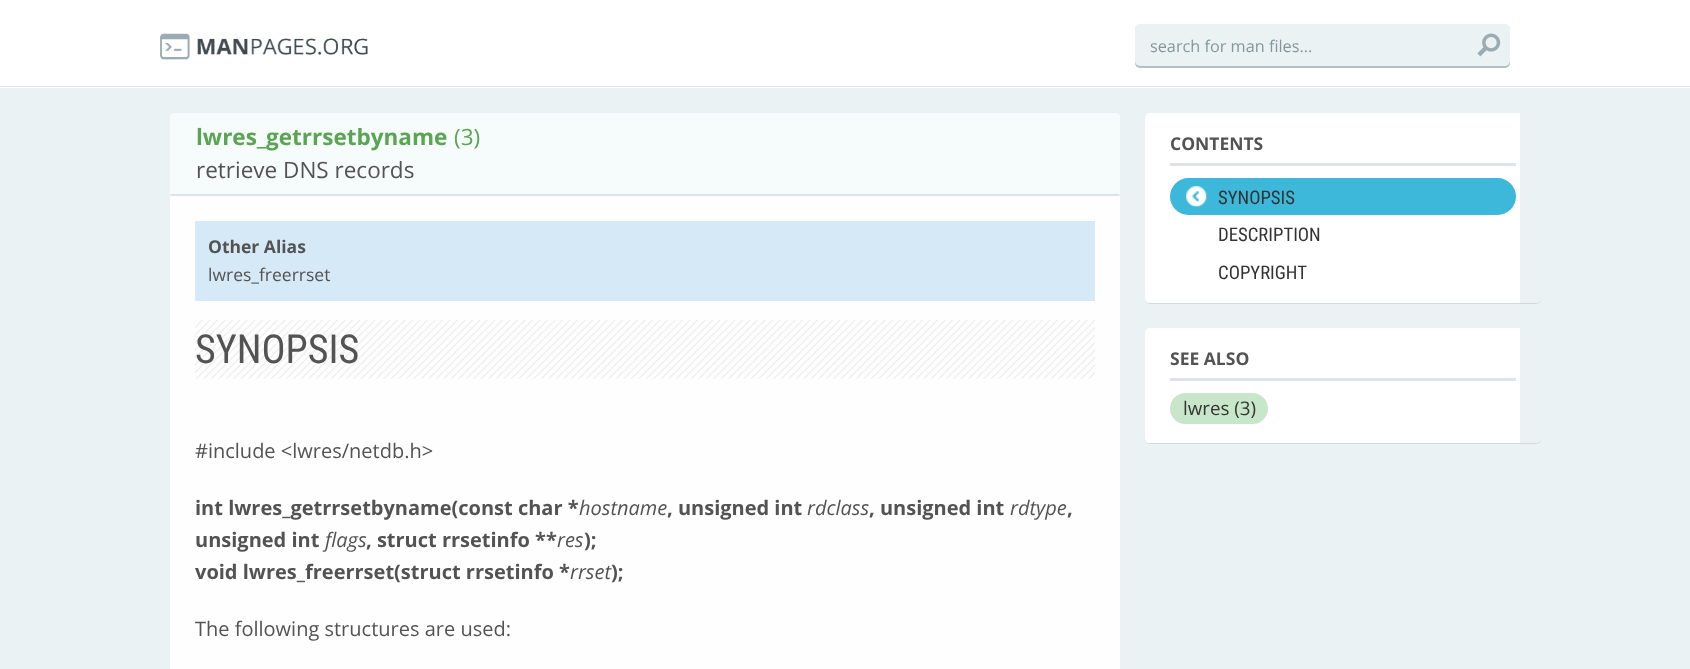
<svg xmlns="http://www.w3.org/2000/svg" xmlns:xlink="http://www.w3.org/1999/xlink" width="1690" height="669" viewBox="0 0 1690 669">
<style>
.cls-1{font:16.25px Open Sans;fill:#86969d}
.cls-2{font:bold 22.5px Open Sans;fill:#59a552}
.cls-3{font:22.5px Open Sans;fill:#59a552}
.cls-4{font:22.5px Open Sans;fill:#535353}
.cls-5{font:bold 17.5px Open Sans;fill:#535353}
.cls-6{font:17.5px Open Sans;fill:#535353}
.cls-7{font:40px Roboto Condensed;fill:#535353}
.cls-8{font:20px Open Sans;fill:#535353}
.cls-9{font:bold 20px Open Sans;fill:#535353}
.cls-10{font:italic 20px Open Sans;fill:#535353}
.cls-11{font:18.75px Roboto Condensed;fill:#333333}
.cls-12{font:18.75px Open Sans;fill:#333333}
</style>
<defs>
<clipPath id="clip1"><path d="M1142 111H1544V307H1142ZM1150 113H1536C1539 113 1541 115 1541 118V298C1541 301 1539 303 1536 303H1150C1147 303 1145 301 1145 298V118C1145 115 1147 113 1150 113Z" clip-rule="evenodd"/></clipPath>
<clipPath id="clip2"><path d="M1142 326H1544V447H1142ZM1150 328H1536C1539 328 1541 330 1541 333V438C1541 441 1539 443 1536 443H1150C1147 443 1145 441 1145 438V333C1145 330 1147 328 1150 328Z" clip-rule="evenodd"/></clipPath>
</defs>
<rect width="100%" height="100%" fill="#eaf2f4"/>
<rect fill="#ffffff" x="0" y="0" width="1690" height="88"/>
<rect fill="#dce5e7" x="0" y="86" width="1690" height="1"/>
<image xlink:href="image0.png" x="160" y="33" width="208" height="27"/>
<rect fill="#062f37" fill-opacity="0.3" filter="blur(0.5px)" x="1135" y="25" width="375" height="43" rx="5"/>
<rect fill="#eaf2f4" x="1135" y="24" width="375" height="42" rx="5"/>
<image xlink:href="image1.png" x="1477" y="33" width="24" height="24"/>
<path fill="#fefefe" d="M175 113H1115C1118 113 1120 115 1120 118V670H170V118C170 115 172 113 175 113Z"/>
<path fill="#f6fbfc" d="M174 113H1116C1118 113 1120 115 1120 117V196H170V117C170 115 172 113 174 113Z"/>
<path fill="#dfe3e9" d="M1120 196H170L171 194H1119Z"/>
<rect fill="#d5e9f6" x="195" y="221" width="900" height="80"/>
<image xlink:href="image2.png" x="195" y="320" width="900" height="59"/>
<g clip-path="url(#clip1)">
<rect fill="#000000" fill-opacity="0.1" filter="blur(0.5px)" x="1145" y="114" width="396" height="190" rx="5"/>
</g>
<path fill="#ffffff" d="M1150 113H1520V303H1150C1147 303 1145 301 1145 298V118C1145 115 1147 113 1150 113Z"/>
<rect fill="#dfe3e9" x="1170" y="163" width="346" height="3"/>
<rect fill="#3db8db" x="1170" y="178" width="346" height="37" rx="18.5"/>
<image xlink:href="image3.png" x="1186" y="186" width="21" height="21"/>
<g clip-path="url(#clip2)">
<rect fill="#000000" fill-opacity="0.1" filter="blur(0.5px)" x="1145" y="329" width="396" height="115" rx="5"/>
</g>
<path fill="#ffffff" d="M1150 328H1520V443H1150C1147 443 1145 441 1145 438V333C1145 330 1147 328 1150 328Z"/>
<rect fill="#dfe3e9" x="1170" y="378" width="346" height="3"/>
<rect fill="#c8e6c9" x="1170" y="393" width="98" height="31" rx="15.5"/>
<text class="cls-1" x="1150" y="52">search for man files...</text>
<text class="cls-2" x="196" y="145">lwres_getrrsetbyname</text>
<text class="cls-3" x="454" y="145">(3)</text>
<text class="cls-4" x="196" y="178">retrieve DNS records</text>
<text class="cls-5" x="208" y="253">Other Alias</text>
<text class="cls-6" x="208" y="281">lwres_freerrset</text>
<text class="cls-7" x="195" y="363">SYNOPSIS</text>
<text class="cls-8" x="195" y="458">#include &lt;lwres/netdb.h&gt;</text>
<text class="cls-9" x="195" y="515">int lwres_getrrsetbyname(const char *</text>
<text class="cls-10" x="579" y="515">hostname</text>
<text class="cls-9" x="667" y="515">, unsigned int</text>
<text class="cls-10" x="807" y="515">rdclass</text>
<text class="cls-9" x="869" y="515">, unsigned int</text>
<text class="cls-10" x="1010" y="515">rdtype</text>
<text class="cls-9" x="1067" y="515">,</text>
<text class="cls-9" x="195" y="547">unsigned int</text>
<text class="cls-10" x="325" y="547">flags</text>
<text class="cls-9" x="366" y="547">, struct rrsetinfo **</text>
<text class="cls-10" x="557" y="547">res</text>
<text class="cls-9" x="584" y="547">);</text>
<text class="cls-9" x="195" y="579">void lwres_freerrset(struct rrsetinfo *</text>
<text class="cls-10" x="570" y="579">rrset</text>
<text class="cls-9" x="611" y="579">);</text>
<text class="cls-8" x="195" y="636">The following structures are used:</text>
<text class="cls-5" x="1170" y="150">CONTENTS</text>
<text class="cls-11"><tspan x="1218" y="204">SYNOPSIS</tspan><tspan x="1218" y="241">DESCRIPTION</tspan></text>
<text class="cls-11" x="1218" y="279">COPYRIGHT</text>
<text class="cls-5" x="1170" y="365">SEE ALSO</text>
<text class="cls-12" x="1183" y="415">lwres (3)</text>
</svg>
